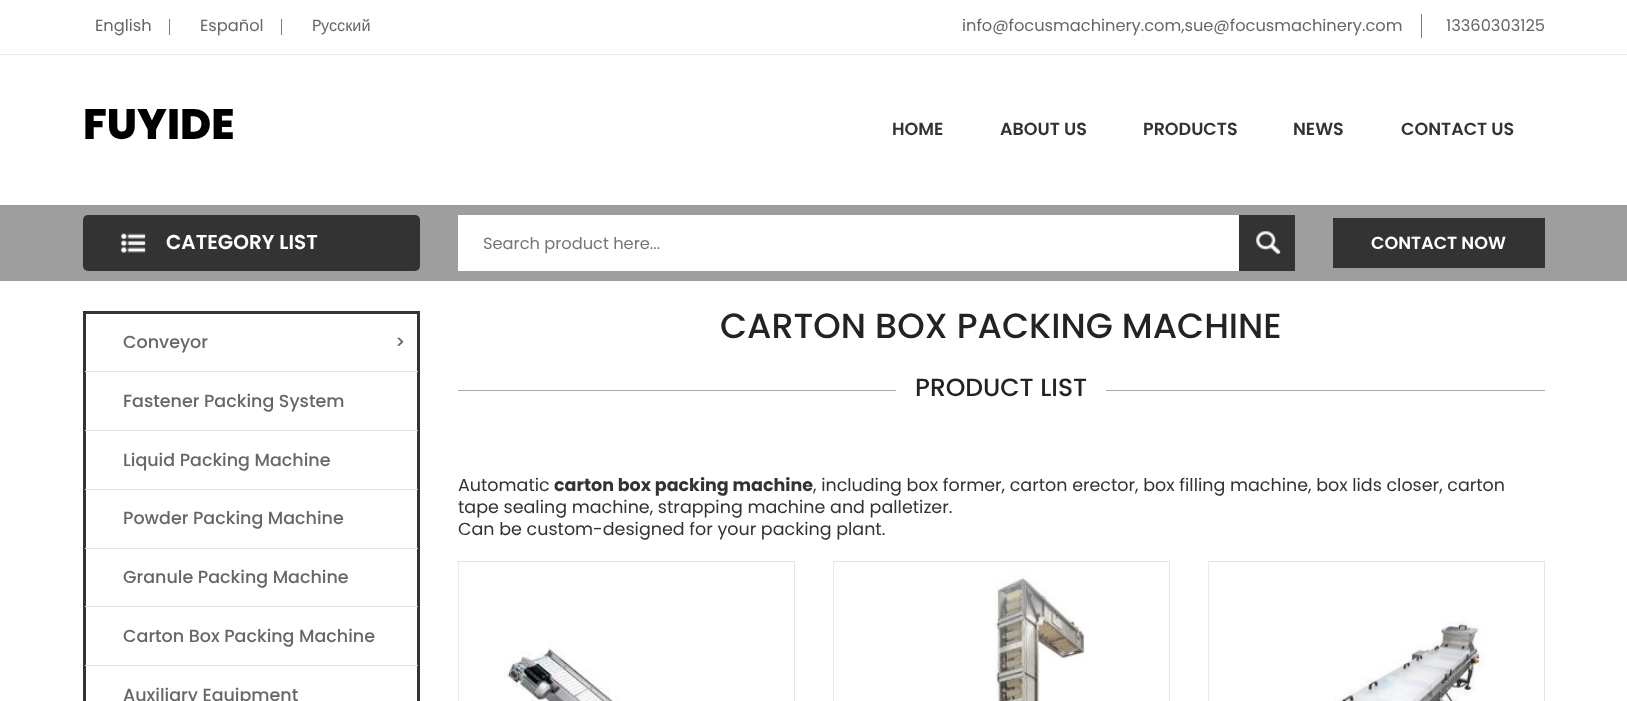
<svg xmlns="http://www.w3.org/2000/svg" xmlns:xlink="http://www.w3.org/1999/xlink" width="1627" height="701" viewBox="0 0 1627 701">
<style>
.cls-1{font:16.25px Poppins;fill:#676767}
.cls-2{font:16.25px Liberation Sans;fill:#676767}
.cls-3{font:800 42.5px Poppins;fill:#000000}
.cls-4{font:600 17.5px Poppins;fill:#333333}
.cls-5{font:600 20px Poppins;fill:#ffffff}
.cls-6{font:16.25px Poppins;fill:#757575}
.cls-7{font:600 17.5px Poppins;fill:#ffffff}
.cls-8{font:500 17.5px Poppins;fill:#676767}
.cls-9{font:500 35px Poppins;fill:#232323}
.cls-10{font:500 25px Poppins;fill:#232323}
.cls-11{font:17.5px Poppins;fill:#333333}
.cls-12{font:bold 17.5px Poppins;fill:#333333}
</style>
<rect width="100%" height="100%" fill="#ffffff"/>
<rect fill="#ebebeb" x="0" y="54" width="1627" height="1"/>
<rect fill="#7c7c7c" x="169" y="19" width="1" height="16"/>
<rect fill="#7c7c7c" x="281" y="19" width="1" height="16"/>
<rect fill="#7c7c7c" x="1421" y="14" width="1" height="24"/>
<rect fill="#9e9e9e" x="0" y="205" width="1627" height="76"/>
<rect fill="#333333" x="83" y="215" width="337" height="56" rx="5"/>
<image xlink:href="image0.png" x="121" y="233" width="25" height="20"/>
<rect fill="#ffffff" x="458" y="215" width="781" height="56"/>
<rect fill="#333333" x="1239" y="215" width="56" height="56"/>
<image xlink:href="image1.png" x="1256" y="231" width="25" height="23"/>
<rect fill="#333333" x="1333" y="218" width="212" height="50"/>
<rect fill="none" stroke="#333333" stroke-width="3" x="84.5" y="312.5" width="334" height="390"/>
<rect fill="#e5e5e5" x="85" y="371" width="333" height="1"/>
<rect fill="#e5e5e5" x="85" y="430" width="333" height="1"/>
<rect fill="#e5e5e5" x="85" y="489" width="333" height="1"/>
<rect fill="#e5e5e5" x="85" y="548" width="333" height="1"/>
<rect fill="#e5e5e5" x="85" y="606" width="333" height="1"/>
<rect fill="#e5e5e5" x="85" y="665" width="333" height="1"/>
<rect fill="#a5abb7" x="458" y="390" width="438" height="1"/>
<rect fill="#a5abb7" x="1106" y="390" width="439" height="1"/>
<rect fill="none" stroke="#e5e5e5" x="458.5" y="561.5" width="336" height="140"/>
<image xlink:href="image2.png" x="458" y="563" width="162" height="138"/>
<rect fill="none" stroke="#e5e5e5" x="833.5" y="561.5" width="336" height="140"/>
<image xlink:href="image3.png" x="833" y="563" width="252" height="138"/>
<rect fill="none" stroke="#e5e5e5" x="1208.5" y="561.5" width="336" height="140"/>
<image xlink:href="image4.png" x="1208" y="563" width="278" height="138"/>
<text class="cls-1" x="95" y="31">English</text>
<text class="cls-1" x="200" y="31">Español</text>
<text class="cls-1" x="312" y="31">P</text>
<text class="cls-2" x="321" y="31">усский</text>
<text class="cls-1" x="962" y="31">info@focusmachinery.com,sue@focusmachinery.com</text>
<text class="cls-1" x="1446" y="31">13360303125</text>
<text class="cls-3" x="83" y="139">FUYIDE</text>
<text class="cls-4" x="892" y="135">HOME</text>
<text class="cls-4" x="1000" y="135">ABOUT US</text>
<text class="cls-4" x="1143" y="135">PRODUCTS</text>
<text class="cls-4" x="1293" y="135">NEWS</text>
<text class="cls-4" x="1401" y="135">CONTACT US</text>
<text class="cls-5" x="166" y="249">CATEGORY LIST</text>
<text class="cls-6" x="483" y="249">Search product here...</text>
<text class="cls-7" x="1371" y="249">CONTACT NOW</text>
<text class="cls-8" x="123" y="348">Conveyor</text>
<text class="cls-8" x="395" y="348">&gt;</text>
<text class="cls-8" x="123" y="407">Fastener Packing System</text>
<text class="cls-8" x="123" y="466">Liquid Packing Machine</text>
<text class="cls-8" x="123" y="524">Powder Packing Machine</text>
<text class="cls-8" x="123" y="583">Granule Packing Machine</text>
<text class="cls-8" x="123" y="642">Carton Box Packing Machine</text>
<text class="cls-8" x="123" y="701">Auxiliary Equipment</text>
<text class="cls-9" x="720" y="338">CARTON BOX PACKING MACHINE</text>
<text class="cls-10" x="915" y="396">PRODUCT LIST</text>
<text class="cls-11" x="458" y="491">Automatic</text>
<text class="cls-12" x="554" y="491">carton box packing machine</text>
<text class="cls-11" x="813" y="491">, including box former, carton erector, box filling machine, box lids closer, carton</text>
<text class="cls-11"><tspan x="458" y="513">tape sealing machine, strapping machine and palletizer.</tspan><tspan x="458" y="535">Can be custom-designed for your packing plant.</tspan></text>
</svg>
